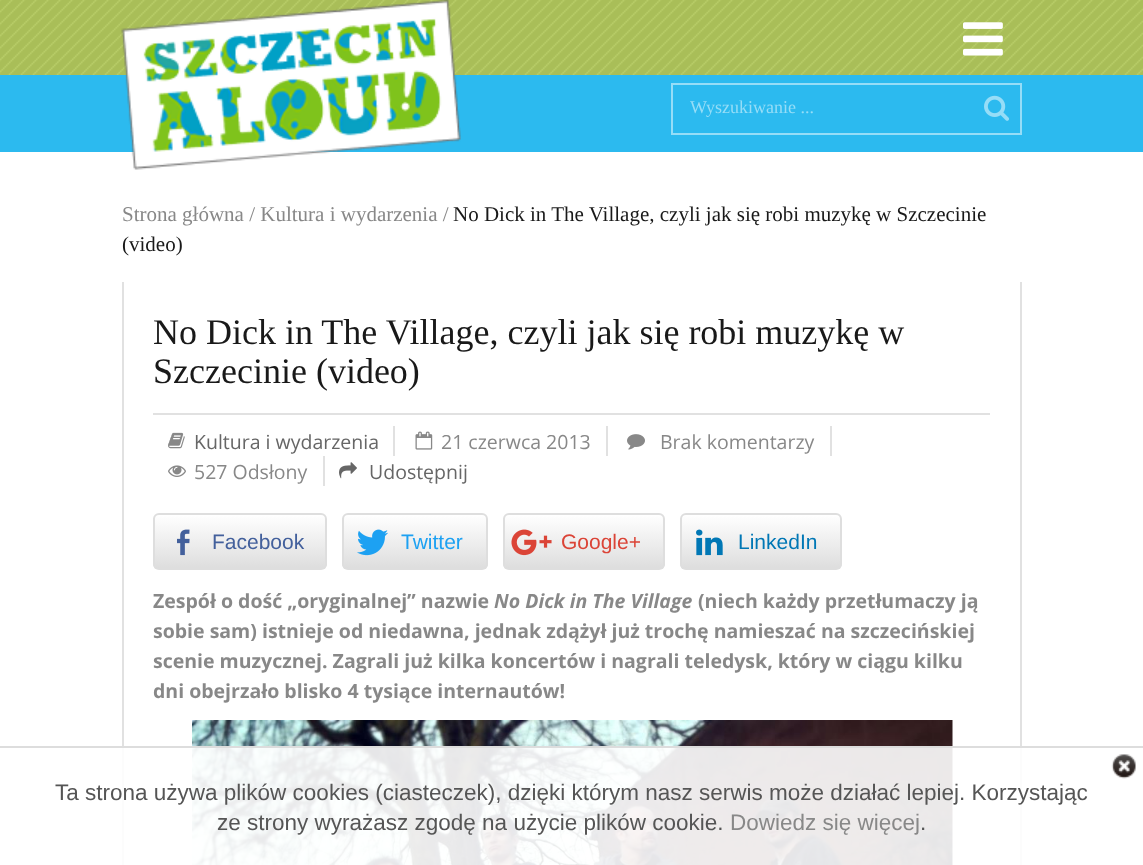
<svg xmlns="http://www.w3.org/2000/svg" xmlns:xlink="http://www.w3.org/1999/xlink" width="1143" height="865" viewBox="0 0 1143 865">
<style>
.cls-1{font:18px Liberation Serif;fill:#96ddf7}
.cls-2{font:21px Liberation Serif;fill:#888888}
.cls-3{font:21px Liberation Serif;fill:#191919}
.cls-4{font:36px Liberation Serif;fill:#191919}
.cls-5{font:19.5px Open Sans;fill:#666666}
.cls-6{font:19.5px Open Sans;fill:#888888}
.cls-7{font:21px Liberation Sans;fill:#43609c}
.cls-8{font:21px Liberation Sans;fill:#1da1f2}
.cls-9{font:21px Liberation Sans;fill:#db4437}
.cls-10{font:21px Liberation Sans;fill:#0077b5}
.cls-11{font:bold 19.5px Open Sans;fill:#888888}
.cls-12{font:italic bold 19.5px Open Sans;fill:#888888}
.cls-13{font:22.5px Liberation Sans;fill:#555555}
.cls-14{font:22.5px Liberation Sans;fill:#888888}
</style>
<defs>
<clipPath id="clip1"><rect x="153" y="513" width="174" height="57" rx="6"/></clipPath>
<linearGradient id="g1" gradientUnits="userSpaceOnUse" x1="240" y1="515" x2="240" y2="569"><stop offset="0" stop-color="#ffffff"/><stop offset="1" stop-color="#dddddd"/></linearGradient>
<clipPath id="clip2"><rect x="342" y="513" width="146" height="57" rx="6"/></clipPath>
<linearGradient id="g2" gradientUnits="userSpaceOnUse" x1="415" y1="515" x2="415" y2="569"><stop offset="0" stop-color="#ffffff"/><stop offset="1" stop-color="#dddddd"/></linearGradient>
<clipPath id="clip3"><rect x="503" y="513" width="162" height="57" rx="6"/></clipPath>
<linearGradient id="g3" gradientUnits="userSpaceOnUse" x1="584" y1="515" x2="584" y2="569"><stop offset="0" stop-color="#ffffff"/><stop offset="1" stop-color="#dddddd"/></linearGradient>
<clipPath id="clip4"><rect x="680" y="513" width="162" height="57" rx="6"/></clipPath>
<linearGradient id="g4" gradientUnits="userSpaceOnUse" x1="761" y1="515" x2="761" y2="569"><stop offset="0" stop-color="#ffffff"/><stop offset="1" stop-color="#dddddd"/></linearGradient>
</defs>
<rect width="100%" height="100%" fill="#ffffff"/>
<image xlink:href="image0.png" x="0" y="0" width="1143" height="75"/>
<rect fill="#2cbaef" x="0" y="75" width="1143" height="77"/>
<image xlink:href="image1.png" x="121" y="0" width="340" height="170"/>
<image xlink:href="image2.png" x="963" y="22" width="40" height="34"/>
<rect fill="none" stroke="#96ddf7" stroke-width="2" x="672" y="84" width="349" height="50"/>
<image xlink:href="image3.png" x="984" y="95" width="25" height="26"/>
<rect fill="#e1e1e1" x="1020" y="282" width="2" height="583"/>
<rect fill="#e1e1e1" x="122" y="282" width="2" height="583"/>
<rect fill="#e1e1e1" x="153" y="413" width="837" height="2"/>
<rect fill="#e1e1e1" x="393" y="426" width="2" height="30"/>
<image xlink:href="image4.png" x="168" y="432" width="17" height="17"/>
<rect fill="#e1e1e1" x="606" y="426" width="2" height="30"/>
<image xlink:href="image5.png" x="415" y="431" width="18" height="19"/>
<rect fill="#e1e1e1" x="830" y="426" width="2" height="30"/>
<image xlink:href="image6.png" x="627" y="434" width="18" height="16"/>
<rect fill="#e1e1e1" x="323" y="456" width="2" height="30"/>
<image xlink:href="image7.png" x="168" y="465" width="18" height="12"/>
<image xlink:href="image8.png" x="339" y="462" width="18" height="17"/>
<g clip-path="url(#clip1)">
<rect fill="url(#g1)" x="153" y="515" width="174" height="54"/>
</g>
<rect fill="none" stroke="#dedede" stroke-width="2" x="154" y="514" width="172" height="55" rx="5"/>
<image xlink:href="image9.png" x="177" y="529" width="13" height="27"/>
<g clip-path="url(#clip2)">
<rect fill="url(#g2)" x="342" y="515" width="146" height="54"/>
</g>
<rect fill="none" stroke="#dedede" stroke-width="2" x="343" y="514" width="144" height="55" rx="5"/>
<image xlink:href="image10.png" x="357" y="529" width="31" height="27"/>
<g clip-path="url(#clip3)">
<rect fill="url(#g3)" x="503" y="515" width="162" height="54"/>
</g>
<rect fill="none" stroke="#dedede" stroke-width="2" x="504" y="514" width="160" height="55" rx="5"/>
<image xlink:href="image11.png" x="511" y="529" width="41" height="27"/>
<g clip-path="url(#clip4)">
<rect fill="url(#g4)" x="680" y="515" width="162" height="54"/>
</g>
<rect fill="none" stroke="#dedede" stroke-width="2" x="681" y="514" width="160" height="55" rx="5"/>
<image xlink:href="image12.png" x="696" y="529" width="27" height="27"/>
<image xlink:href="image13.png" x="192" y="720" width="761" height="145"/>
<rect fill="#ffffff" fill-opacity="0.9" x="122" y="748" width="900" height="117"/>
<rect fill="#dddddd" x="0" y="746" width="1143" height="2"/>
<image xlink:href="image14.png" x="1111" y="754" width="25" height="25"/>
<text class="cls-1" x="690" y="113">Wyszukiwanie ...</text>
<text class="cls-2" x="122" y="221">Strona główna / Kultura i wydarzenia /</text>
<text class="cls-3" x="453" y="221">No Dick in The Village, czyli jak się robi muzykę w Szczecinie</text>
<text class="cls-3" x="122" y="251">(video)</text>
<text class="cls-4"><tspan x="153" y="344">No Dick in The Village, czyli jak się robi muzykę w</tspan><tspan x="153" y="383">Szczecinie (video)</tspan></text>
<text class="cls-5" x="194" y="449">Kultura i wydarzenia</text>
<text class="cls-6" x="441" y="449">21 czerwca 2013</text>
<text class="cls-6" x="660" y="449">Brak komentarzy</text>
<text class="cls-6" x="194" y="479">527 Odsłony</text>
<text class="cls-5" x="369" y="479">Udostępnij</text>
<text class="cls-7" x="212" y="549">Facebook</text>
<text class="cls-8" x="401" y="549">Twitter</text>
<text class="cls-9" x="561" y="549">Google+</text>
<text class="cls-10" x="738" y="549">LinkedIn</text>
<text class="cls-11" x="153" y="608">Zespół o dość „oryginalnej” nazwie</text>
<text class="cls-12" x="494" y="608">No Dick in The Village</text>
<text class="cls-11" x="698" y="608">(niech każdy przetłumaczy ją</text>
<text class="cls-11"><tspan x="153" y="638">sobie sam) istnieje od niedawna, jednak zdążył już trochę namieszać na szczecińskiej</tspan><tspan x="153" y="668">scenie muzycznej. Zagrali już kilka koncertów i nagrali teledysk, który w ciągu kilku</tspan><tspan x="153" y="698">dni obejrzało blisko 4 tysiące internautów!</tspan></text>
<text class="cls-13" x="55" y="800">Ta strona używa plików cookies (ciasteczek), dzięki którym nasz serwis może działać lepiej. Korzystając</text>
<text class="cls-13" x="217" y="830">ze strony wyrażasz zgodę na użycie plików cookie.</text>
<text class="cls-14" x="730" y="830">Dowiedz się więcej</text>
<text class="cls-13" x="920" y="830">.</text>
</svg>
